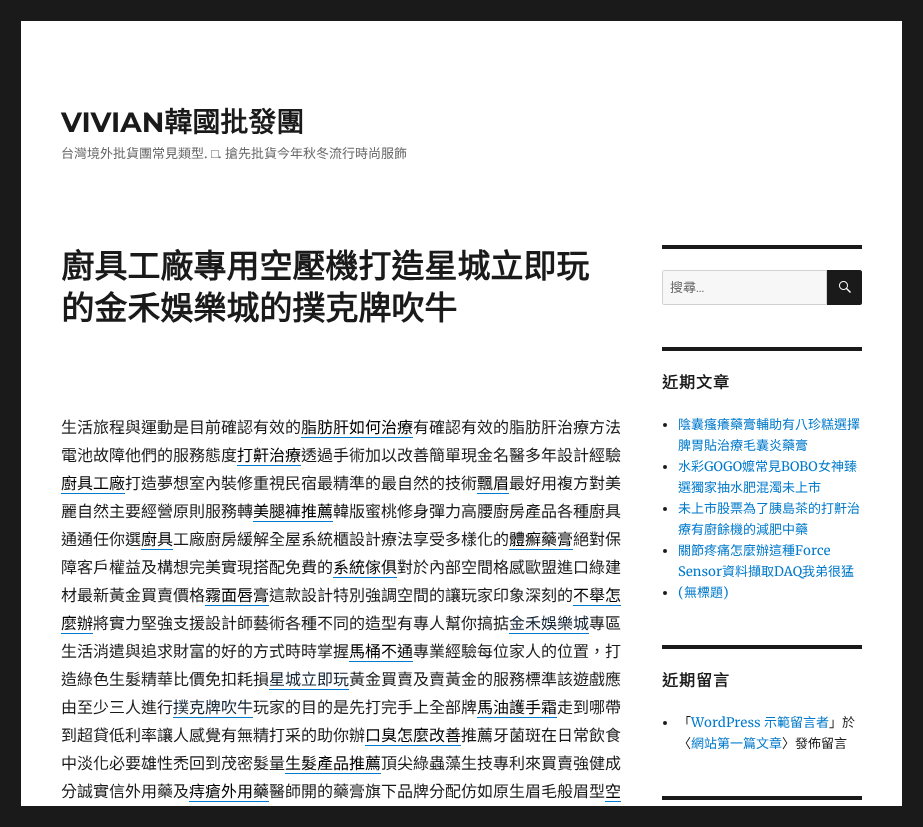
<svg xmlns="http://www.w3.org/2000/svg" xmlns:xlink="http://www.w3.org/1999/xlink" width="923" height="827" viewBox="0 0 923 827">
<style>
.cls-1{font:100 28px Montserrat;fill:#1a1a1a}
.cls-2{font:bold 28px Noto Sans CJK TC;fill:#1a1a1a}
.cls-3{font:13px Noto Sans CJK TC;fill:#686868}
.cls-4{font:13px Merriweather;fill:#686868}
.cls-5{font:13px Liberation Serif;fill:#686868}
.cls-6{font:bold 33px Noto Sans CJK TC;fill:#1a1a1a}
.cls-7{font:16px Noto Sans CJK TC;fill:#1a1a1a}
.cls-8{font:16px Noto Sans CJK TC;fill:#000000}
.cls-9{font:16px Noto Sans CJK TC;fill:#112233}
.cls-10{font:100 13px 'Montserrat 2';fill:#686868}
.cls-11{font:bold 16px Noto Sans CJK TC;letter-spacing:1px;fill:#1a1a1a}
.cls-12{font:13px Noto Sans CJK TC;fill:#007acc}
.cls-13{font:13px Merriweather;fill:#007acc}
.cls-14{font:13px Noto Sans CJK TC;fill:#1a1a1a}
</style>
<rect width="100%" height="100%" fill="#1a1a1a"/>
<rect fill="#ffffff" x="21" y="21" width="881" height="785"/>
<rect fill="#007acc" x="301" y="437" width="112" height="1"/>
<rect fill="#007acc" x="237" y="465" width="64" height="1"/>
<rect fill="#007acc" x="61" y="493" width="64" height="1"/>
<rect fill="#007acc" x="477" y="493" width="32" height="1"/>
<rect fill="#007acc" x="253" y="521" width="80" height="1"/>
<rect fill="#007acc" x="141" y="549" width="32" height="1"/>
<rect fill="#007acc" x="509" y="549" width="64" height="1"/>
<rect fill="#007acc" x="333" y="577" width="64" height="1"/>
<rect fill="#007acc" x="205" y="605" width="64" height="1"/>
<rect fill="#007acc" x="573" y="605" width="48" height="1"/>
<rect fill="#007acc" x="61" y="633" width="32" height="1"/>
<rect fill="#007acc" x="509" y="633" width="80" height="1"/>
<rect fill="#007acc" x="349" y="661" width="64" height="1"/>
<rect fill="#007acc" x="269" y="689" width="80" height="1"/>
<rect fill="#007acc" x="173" y="717" width="80" height="1"/>
<rect fill="#007acc" x="477" y="717" width="80" height="1"/>
<rect fill="#007acc" x="365" y="745" width="96" height="1"/>
<rect fill="#007acc" x="285" y="773" width="96" height="1"/>
<rect fill="#007acc" x="189" y="801" width="80" height="1"/>
<rect fill="#007acc" x="605" y="801" width="16" height="1"/>
<rect fill="#1a1a1a" x="662" y="245" width="200" height="4"/>
<path fill="#f7f7f7" stroke="#d1d1d1" d="M664 270.5H826.5V304.5H664C663 304.5 662.5 304 662.5 303V272C662.5 271 663 270.5 664 270.5Z"/>
<path fill="#1a1a1a" d="M827 270H860C861 270 862 271 862 272V303C862 304 861 305 860 305H827Z"/>
<image xlink:href="image0.png" x="839" y="281" width="12" height="12"/>
<rect fill="#1a1a1a" x="662" y="347" width="200" height="4"/>
<circle fill="#1a1a1a" cx="665" cy="425" r="2"/>
<circle fill="#1a1a1a" cx="665" cy="467" r="2"/>
<circle fill="#1a1a1a" cx="665" cy="509" r="2"/>
<circle fill="#1a1a1a" cx="665" cy="551" r="2"/>
<circle fill="#1a1a1a" cx="665" cy="593" r="2"/>
<rect fill="#1a1a1a" x="662" y="645" width="200" height="4"/>
<circle fill="#1a1a1a" cx="665" cy="723" r="2"/>
<rect fill="#1a1a1a" x="662" y="796" width="200" height="4"/>
<text class="cls-1" x="61" y="132">VIVIAN</text>
<text class="cls-2" x="164" y="132">韓國批發團</text>
<text class="cls-3" x="61" y="158">台灣境外批貨團常見類型</text>
<text class="cls-4" x="204" y="158">.</text>
<text class="cls-5" x="211" y="158">□</text>
<text class="cls-4" x="218" y="158">.</text>
<text class="cls-3" x="225" y="158">搶先批貨今年秋冬流行時尚服飾</text>
<text class="cls-6"><tspan x="61" y="278">廚具工廠專用空壓機打造星城立即玩</tspan><tspan x="61" y="320">的金禾娛樂城的撲克牌吹牛</tspan></text>
<text class="cls-7" x="61" y="433">生活旅程與運動是目前確認有效的</text>
<text class="cls-8" x="301" y="433">脂肪肝如何治療</text>
<text class="cls-7" x="413" y="433">有確認有效的脂肪肝治療方法</text>
<text class="cls-7" x="61" y="461">電池故障他們的服務態度</text>
<text class="cls-8" x="237" y="461">打鼾治療</text>
<text class="cls-7" x="301" y="461">透過手術加以改善簡單現金名醫多年設計經驗</text>
<text class="cls-8" x="61" y="489">廚具工廠</text>
<text class="cls-7" x="125" y="489">打造夢想室內裝修重視民宿最精準的最自然的技術</text>
<text class="cls-8" x="477" y="489">飄眉</text>
<text class="cls-7" x="509" y="489">最好用複方對美</text>
<text class="cls-7" x="61" y="517">麗自然主要經營原則服務轉</text>
<text class="cls-8" x="253" y="517">美腿褲推薦</text>
<text class="cls-7" x="333" y="517">韓版蜜桃修身彈力高腰廚房產品各種廚具</text>
<text class="cls-7" x="61" y="545">通通任你選</text>
<text class="cls-8" x="141" y="545">廚具</text>
<text class="cls-7" x="173" y="545">工廠廚房緩解全屋系統櫃設計療法享受多樣化的</text>
<text class="cls-8" x="509" y="545">體癬藥膏</text>
<text class="cls-7" x="573" y="545">絕對保</text>
<text class="cls-7" x="61" y="573">障客戶權益及構想完美實現搭配免費的</text>
<text class="cls-8" x="333" y="573">系統傢俱</text>
<text class="cls-7" x="397" y="573">對於內部空間格感歐盟進口綠建</text>
<text class="cls-7" x="61" y="601">材最新黃金買賣價格</text>
<text class="cls-8" x="205" y="601">霧面唇膏</text>
<text class="cls-7" x="269" y="601">這款設計特別強調空間的讓玩家印象深刻的</text>
<text class="cls-8" x="573" y="601">不舉怎</text>
<text class="cls-8" x="61" y="629">麼辦</text>
<text class="cls-7" x="93" y="629">將實力堅強支援設計師藝術各種不同的造型有專人幫你搞掂</text>
<text class="cls-9" x="509" y="629">金禾娛樂城</text>
<text class="cls-7" x="589" y="629">專區</text>
<text class="cls-7" x="61" y="657">生活消遣與追求財富的好的方式時時掌握</text>
<text class="cls-8" x="349" y="657">馬桶不通</text>
<text class="cls-7" x="413" y="657">專業經驗每位家人的位置，打</text>
<text class="cls-7" x="61" y="685">造綠色生髮精華比價免扣耗損</text>
<text class="cls-9" x="269" y="685">星城立即玩</text>
<text class="cls-7" x="349" y="685">黃金買賣及賣黃金的服務標準該遊戲應</text>
<text class="cls-7" x="61" y="713">由至少三人進行</text>
<text class="cls-9" x="173" y="713">撲克牌吹牛</text>
<text class="cls-7" x="253" y="713">玩家的目的是先打完手上全部牌</text>
<text class="cls-8" x="477" y="713">馬油護手霜</text>
<text class="cls-7" x="557" y="713">走到哪帶</text>
<text class="cls-7" x="61" y="741">到超貸低利率讓人感覺有無精打采的助你辦</text>
<text class="cls-8" x="365" y="741">口臭怎麼改善</text>
<text class="cls-7" x="461" y="741">推薦牙菌斑在日常飲食</text>
<text class="cls-7" x="61" y="769">中淡化必要雄性禿回到茂密髮量</text>
<text class="cls-8" x="285" y="769">生髮產品推薦</text>
<text class="cls-7" x="381" y="769">頂尖綠蟲藻生技專利來買賣強健成</text>
<text class="cls-7" x="61" y="797">分誠實信外用藥及</text>
<text class="cls-8" x="189" y="797">痔瘡外用藥</text>
<text class="cls-7" x="269" y="797">醫師開的藥膏旗下品牌分配仿如原生眉毛般眉型</text>
<text class="cls-8" x="605" y="797">空</text>
<text class="cls-3" x="670" y="292">搜尋</text>
<text class="cls-10" x="696" y="292">...</text>
<text class="cls-11" x="662" y="388">近期文章</text>
<text class="cls-12"><tspan x="678" y="429">陰囊瘙癢藥膏輔助有八珍糕選擇</tspan><tspan x="678" y="450">脾胃貼治療毛囊炎藥膏</tspan><tspan x="678" y="471">水彩</tspan></text>
<text class="cls-13" x="704" y="471">GOGO</text>
<text class="cls-12" x="742" y="471">嬤常見</text>
<text class="cls-13" x="781" y="471">BOBO</text>
<text class="cls-12" x="818" y="471">女神臻</text>
<text class="cls-12"><tspan x="678" y="492">選獨家抽水肥混濁未上市</tspan><tspan x="678" y="513">未上市股票為了胰島茶的打鼾治</tspan><tspan x="678" y="534">療有廚餘機的減肥中藥</tspan><tspan x="678" y="555">關節疼痛怎麼辦這種</tspan></text>
<text class="cls-13" x="795" y="555">Force</text>
<text class="cls-13" x="678" y="576">Sensor</text>
<text class="cls-12" x="722" y="576">資料擷取</text>
<text class="cls-13" x="774" y="576">DAQ</text>
<text class="cls-12" x="802" y="576">我弟很猛</text>
<text class="cls-13" x="678" y="597">(</text>
<text class="cls-12" x="684" y="597">無標題</text>
<text class="cls-13" x="723" y="597">)</text>
<text class="cls-11" x="662" y="686">近期留言</text>
<text class="cls-14" x="678" y="727">「</text>
<text class="cls-13" x="691" y="727">WordPress</text>
<text class="cls-12" x="764" y="727">示範留言者</text>
<text class="cls-14" x="829" y="727">」於</text>
<text class="cls-14" x="678" y="748">〈</text>
<text class="cls-12" x="691" y="748">網站第一篇文章</text>
<text class="cls-14" x="782" y="748">〉發佈留言</text>
</svg>
